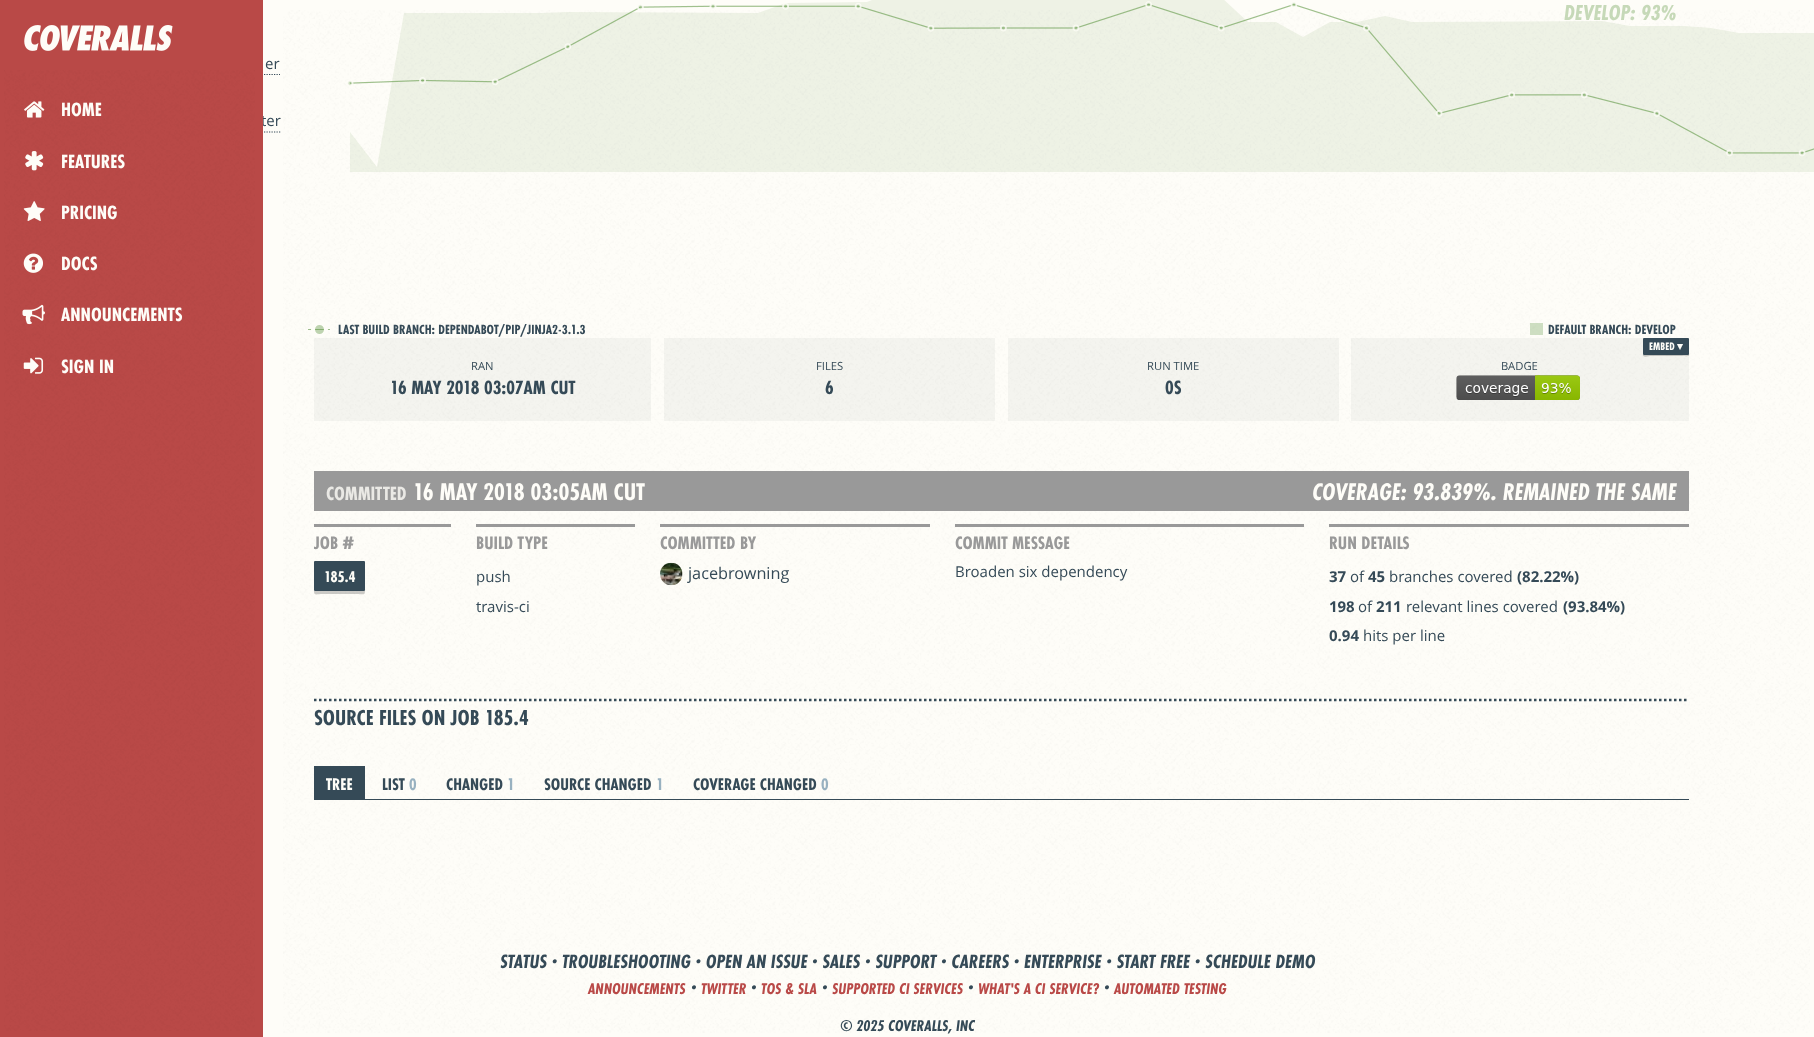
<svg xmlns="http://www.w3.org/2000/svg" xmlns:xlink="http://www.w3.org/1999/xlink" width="1814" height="1037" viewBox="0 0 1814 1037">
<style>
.cls-1{font:15px Open Sans;fill:#354a57}
.cls-2{font:italic bold 22.5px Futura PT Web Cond;fill:#c6d9b8}
.cls-3{font:bold 13.75px Futura PT Web Cond;fill:#354a57}
.cls-4{font:bold 11.25px Futura PT Web Cond;fill:#fefdf8}
.cls-5{font:bold 11.25px DejaVu Sans;fill:#fefdf8}
.cls-6{font:11.25px Open Sans;fill:#354a57}
.cls-7{font:bold 20px Futura PT Web Cond;fill:#354a57}
.cls-8{font:bold 20px Futura PT Web Cond;fill:#eae9e5}
.cls-9{font:bold 25px Futura PT Web Cond;fill:#fefdf8}
.cls-10{font:italic bold 25px Futura PT Web Cond;fill:#fefdf8}
.cls-11{font:bold 18.75px Futura PT Web Cond;fill:#999999}
.cls-12{font:bold 16.25px Futura PT Web Cond;fill:#fefdf8}
.cls-13{font:16.25px Open Sans;fill:#354a57}
.cls-14{font:bold 15px Open Sans;fill:#354a57}
.cls-15{font:bold 22.5px Futura PT Web Cond;fill:#354a57}
.cls-16{font:bold 17.5px Futura PT Web Cond;fill:#fefdf8}
.cls-17{font:bold 17.5px Futura PT Web Cond;fill:#354a57}
.cls-18{font:bold 17.5px Futura PT Web Cond;fill:#98b1c0}
.cls-19{font:bold 20px Futura PT Web Cond;fill:#fefdf8}
.cls-20{font:italic bold 20px Futura PT Web Cond;fill:#354a57}
.cls-21{font:italic bold 16.25px Futura PT Web Cond;fill:#b94947}
.cls-22{font:italic bold 16.25px Futura PT Web Cond;fill:#354a57}
</style>
<rect width="100%" height="100%" fill="#fefdf8"/>
<rect fill="#9fc08c" x="308" y="329" width="22" height="1"/>
<image xlink:href="image0.png" x="283" y="10" width="1527" height="1023"/>
<path fill="none" stroke="#354a57" stroke-width="1.2" stroke-dasharray="1.25 1.25" d="M119 74.5H280"/>
<path fill="none" stroke="#354a57" stroke-width="1.2" stroke-dasharray="1.25 1.25" d="M119 132H281"/>
<path fill="#5f9744" fill-opacity="0.1" d="M350 132L377 167L404 13H541L568 12L758 13L786 3L867 2L895-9H1112H1140L1167-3H1221L1248 22H1276L1303 37L1330 22H1357L1385 16L1412 22L1602 21L1630 26H1684L1711 28L1739 33H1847L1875 26L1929 25L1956 26H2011L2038 20L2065 25L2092 26V172H350Z"/>
<image xlink:href="image1.png" x="347" y="1" width="1467" height="156"/>
<circle fill="#5f9744" fill-opacity="0.4" stroke="#fefdf8" stroke-width="4" cx="319.5" cy="329.5" r="6.5"/>
<rect fill="#5f9744" fill-opacity="0.3" x="1530" y="323" width="13" height="12"/>
<rect fill="#354a57" fill-opacity="0.05" x="1351" y="338" width="338" height="83"/>
<path fill="#000000" fill-opacity="0.2" d="M1643 355C1643 358 1649 356 1651 356H1681C1691 356 1689 358 1689 348V339V351C1689 357 1687 355 1680 355Z"/>
<rect fill="#354a57" x="1643" y="338" width="46" height="17" rx="1"/>
<image xlink:href="image2.png" x="1456" y="375" width="124" height="25"/>
<rect fill="#354a57" fill-opacity="0.05" x="314" y="338" width="337" height="83"/>
<rect fill="#354a57" fill-opacity="0.05" x="664" y="338" width="331" height="83"/>
<rect fill="#354a57" fill-opacity="0.05" x="1008" y="338" width="331" height="83"/>
<rect fill="#999999" x="314" y="471" width="1375" height="40"/>
<rect fill="#999999" x="314" y="524" width="137" height="3"/>
<path fill="#000000" fill-opacity="0.2" d="M314 591C314 596 316 594 323 594H356C364 594 365 596 365 590C365 591 364 591 364 591H315Z"/>
<rect fill="#354a57" x="314" y="561" width="51" height="30" rx="1"/>
<rect fill="#999999" x="476" y="524" width="159" height="3"/>
<rect fill="#999999" x="660" y="524" width="270" height="3"/>
<image xlink:href="image3.png" x="660" y="562" width="23" height="24"/>
<rect fill="#999999" x="955" y="524" width="349" height="3"/>
<rect fill="#999999" x="1329" y="524" width="360" height="3"/>
<path fill="none" stroke="#354a57" stroke-width="2.5" stroke-dasharray="2.5 2.5" d="M314 700H1689"/>
<rect fill="#354a57" x="314" y="799" width="1375" height="1"/>
<rect fill="#354a57" x="314" y="766" width="51" height="33"/>
<text class="cls-1" x="265" y="69">er</text>
<text class="cls-1" x="261" y="126">ter</text>
<text class="cls-2" x="1564" y="20">DEVELOP: 93%</text>
<text class="cls-3" x="338" y="334">LAST BUILD BRANCH: DEPENDABOT/PIP/JINJA2-3.1.3</text>
<text class="cls-3" x="1548" y="334">DEFAULT BRANCH: DEVELOP</text>
<text class="cls-4" x="1649" y="350">EMBED</text>
<text class="cls-5" x="1677" y="350">▾</text>
<text class="cls-6" x="1501" y="370">BADGE</text>
<text class="cls-6" x="471" y="370">RAN</text>
<text class="cls-7" x="390" y="394">16 MAY 2018 03:07AM CUT</text>
<text class="cls-6" x="816" y="370">FILES</text>
<text class="cls-7" x="825" y="394">6</text>
<text class="cls-6" x="1147" y="370">RUN TIME</text>
<text class="cls-7" x="1165" y="394">0S</text>
<text class="cls-8" x="326" y="500">COMMITTED</text>
<text class="cls-9" x="413" y="500">16 MAY 2018 03:05AM CUT</text>
<text class="cls-10" x="1312" y="500">COVERAGE: 93.839%. REMAINED THE SAME</text>
<text class="cls-11" x="314" y="549">JOB #</text>
<text class="cls-12" x="324" y="582">185.4</text>
<text class="cls-11" x="476" y="549">BUILD TYPE</text>
<text class="cls-1" x="476" y="582">push</text>
<text class="cls-1" x="476" y="612">travis-ci</text>
<text class="cls-11" x="660" y="549">COMMITTED BY</text>
<text class="cls-13" x="688" y="579">jacebrowning</text>
<text class="cls-11" x="955" y="549">COMMIT MESSAGE</text>
<text class="cls-1" x="955" y="577">Broaden six dependency</text>
<text class="cls-11" x="1329" y="549">RUN DETAILS</text>
<text class="cls-14" x="1329" y="582">37</text>
<text class="cls-1" x="1350" y="582">of</text>
<text class="cls-14" x="1368" y="582">45</text>
<text class="cls-1" x="1389" y="582">branches covered</text>
<text class="cls-14" x="1517" y="582">(82.22%)</text>
<text class="cls-14" x="1329" y="612">198</text>
<text class="cls-1" x="1358" y="612">of</text>
<text class="cls-14" x="1376" y="612">211</text>
<text class="cls-1" x="1406" y="612">relevant lines covered</text>
<text class="cls-14" x="1563" y="612">(93.84%)</text>
<text class="cls-14" x="1329" y="641">0.94</text>
<text class="cls-1" x="1363" y="641">hits per line</text>
<text class="cls-15" x="314" y="725">SOURCE FILES ON JOB 185.4</text>
<text class="cls-16" x="326" y="790">TREE</text>
<text class="cls-17" x="382" y="790">LIST</text>
<text class="cls-18" x="409" y="790">0</text>
<text class="cls-17" x="446" y="790">CHANGED</text>
<text class="cls-18" x="507" y="790">1</text>
<text class="cls-17" x="544" y="790">SOURCE CHANGED</text>
<text class="cls-18" x="656" y="790">1</text>
<text class="cls-17" x="693" y="790">COVERAGE CHANGED</text>
<text class="cls-18" x="821" y="790">0</text>
<rect fill="#b94947" x="0" y="0" width="263" height="1037"/>
<image xlink:href="image4.png" x="4" y="70" width="251" height="961"/>
<image xlink:href="image5.png" x="24" y="25" width="149" height="26"/>
<image xlink:href="image6.png" x="24" y="101" width="21" height="17"/>
<text class="cls-19" x="61" y="116">HOME</text>
<image xlink:href="image7.png" x="25" y="151" width="19" height="20"/>
<text class="cls-19" x="61" y="168">FEATURES</text>
<image xlink:href="image8.png" x="23" y="201" width="22" height="20"/>
<text class="cls-19" x="61" y="219">PRICING</text>
<image xlink:href="image9.png" x="23" y="253" width="20" height="20"/>
<text class="cls-19" x="61" y="270">DOCS</text>
<image xlink:href="image10.png" x="22" y="304" width="23" height="21"/>
<text class="cls-19" x="61" y="321">ANNOUNCEMENTS</text>
<image xlink:href="image11.png" x="23" y="357" width="21" height="17"/>
<text class="cls-19" x="61" y="373">SIGN IN</text>
<text class="cls-20" x="500" y="968">STATUS · TROUBLESHOOTING · OPEN AN ISSUE · SALES · SUPPORT · CAREERS · ENTERPRISE · START FREE · SCHEDULE DEMO</text>
<text class="cls-21" x="588" y="994">ANNOUNCEMENTS</text>
<text class="cls-20" x="691" y="994">·</text>
<text class="cls-21" x="701" y="994">TWITTER</text>
<text class="cls-20" x="751" y="994">·</text>
<text class="cls-21" x="761" y="994">TOS &amp; SLA</text>
<text class="cls-20" x="822" y="994">·</text>
<text class="cls-21" x="832" y="994">SUPPORTED CI SERVICES</text>
<text class="cls-20" x="968" y="994">·</text>
<text class="cls-21" x="978" y="994">WHAT'S A CI SERVICE?</text>
<text class="cls-20" x="1104" y="994">·</text>
<text class="cls-21" x="1114" y="994">AUTOMATED TESTING</text>
<text class="cls-22" x="840" y="1031">© 2025 COVERALLS, INC</text>
</svg>
